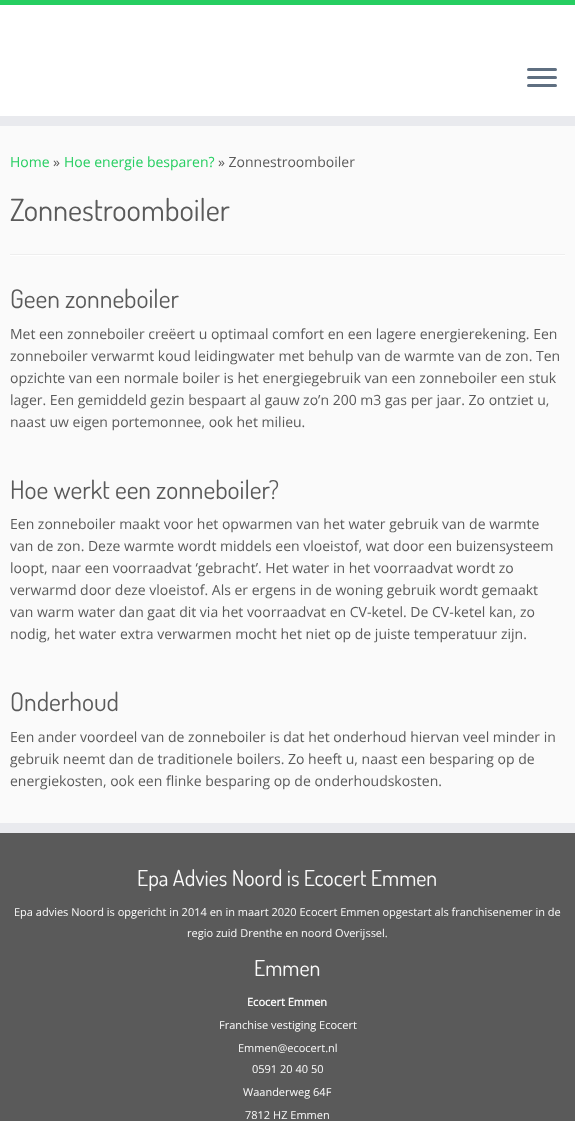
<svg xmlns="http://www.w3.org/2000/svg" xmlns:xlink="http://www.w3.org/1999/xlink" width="575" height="1121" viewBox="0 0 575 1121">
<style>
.cls-1{font:14px Open Sans;fill:#26ce61}
.cls-2{font:14px Open Sans;fill:#5a5a5a}
.cls-3{font:30.5px Dosis;fill:#5a5a5a}
.cls-4{font:25.6px Dosis;fill:#5a5a5a}
.cls-5{font:22px Dosis;fill:#fafafa}
.cls-6{font:11px Open Sans;fill:#fafafa}
.cls-7{font:bold 11px Open Sans;fill:#fafafa}
</style>
<rect width="100%" height="100%" fill="#fafafa"/>
<rect fill="#ffffff" x="0" y="5" width="575" height="111"/>
<rect fill="#26ce61" x="0" y="0" width="575" height="5"/>
<rect fill="#e9eaee" x="0" y="116" width="575" height="10"/>
<rect fill="#5f6f81" x="527" y="68" width="30" height="3" rx="1.5"/>
<rect fill="#5f6f81" x="527" y="76" width="30" height="3" rx="1.5"/>
<rect fill="#5f6f81" x="527" y="84" width="30" height="3" rx="1.5"/>
<rect fill="#eeeeee" x="10" y="254" width="555" height="1"/>
<rect fill="#ffffff" x="10" y="255" width="555" height="1"/>
<rect fill="#5a5a5a" x="0" y="833" width="575" height="288"/>
<rect fill="#e9eaee" x="0" y="823" width="575" height="10"/>
<text class="cls-1" x="10" y="167">Home</text>
<text class="cls-2" x="53" y="167">»</text>
<text class="cls-1" x="64" y="167">Hoe energie besparen?</text>
<text class="cls-2" x="218" y="167">» Zonnestroomboiler</text>
<text class="cls-3" x="10" y="221">Zonnestroomboiler</text>
<text class="cls-4" x="10" y="308">Geen zonneboiler</text>
<text class="cls-2"><tspan x="10" y="339">Met een zonneboiler creëert u optimaal comfort en een lagere energierekening. Een</tspan><tspan x="10" y="361">zonneboiler verwarmt koud leidingwater met behulp van de warmte van de zon. Ten</tspan><tspan x="10" y="383">opzichte van een normale boiler is het energiegebruik van een zonneboiler een stuk</tspan><tspan x="10" y="405">lager. Een gemiddeld gezin bespaart al gauw zo’n 200 m3 gas per jaar. Zo ontziet u,</tspan><tspan x="10" y="427">naast uw eigen portemonnee, ook het milieu.</tspan></text>
<text class="cls-4" x="10" y="499">Hoe werkt een zonneboiler?</text>
<text class="cls-2"><tspan x="10" y="529">Een zonneboiler maakt voor het opwarmen van het water gebruik van de warmte</tspan><tspan x="10" y="551">van de zon. Deze warmte wordt middels een vloeistof, wat door een buizensysteem</tspan><tspan x="10" y="573">loopt, naar een voorraadvat ‘gebracht’. Het water in het voorraadvat wordt zo</tspan><tspan x="10" y="595">verwarmd door deze vloeistof. Als er ergens in de woning gebruik wordt gemaakt</tspan><tspan x="10" y="617">van warm water dan gaat dit via het voorraadvat en CV-ketel. De CV-ketel kan, zo</tspan><tspan x="10" y="639">nodig, het water extra verwarmen mocht het niet op de juiste temperatuur zijn.</tspan></text>
<text class="cls-4" x="10" y="711">Onderhoud</text>
<text class="cls-2"><tspan x="10" y="742">Een ander voordeel van de zonneboiler is dat het onderhoud hiervan veel minder in</tspan><tspan x="10" y="764">gebruik neemt dan de traditionele boilers. Zo heeft u, naast een besparing op de</tspan><tspan x="10" y="786">energiekosten, ook een flinke besparing op de onderhoudskosten.</tspan></text>
<text class="cls-5" x="137" y="886">Epa Advies Noord is Ecocert Emmen</text>
<text class="cls-6" x="14" y="916">Epa advies Noord is opgericht in 2014 en in maart 2020 Ecocert Emmen opgestart als franchisenemer in de</text>
<text class="cls-6" x="187" y="937">regio zuid Drenthe en noord Overijssel.</text>
<text class="cls-5" x="254" y="976">Emmen</text>
<text class="cls-7" x="247" y="1006">Ecocert Emmen</text>
<text class="cls-6" x="219" y="1029">Franchise vestiging Ecocert</text>
<text class="cls-6" x="238" y="1052">Emmen@ecocert.nl</text>
<text class="cls-6" x="252" y="1073">0591 20 40 50</text>
<text class="cls-6" x="243" y="1096">Waanderweg 64F</text>
<text class="cls-6" x="245" y="1119">7812 HZ Emmen</text>
</svg>
